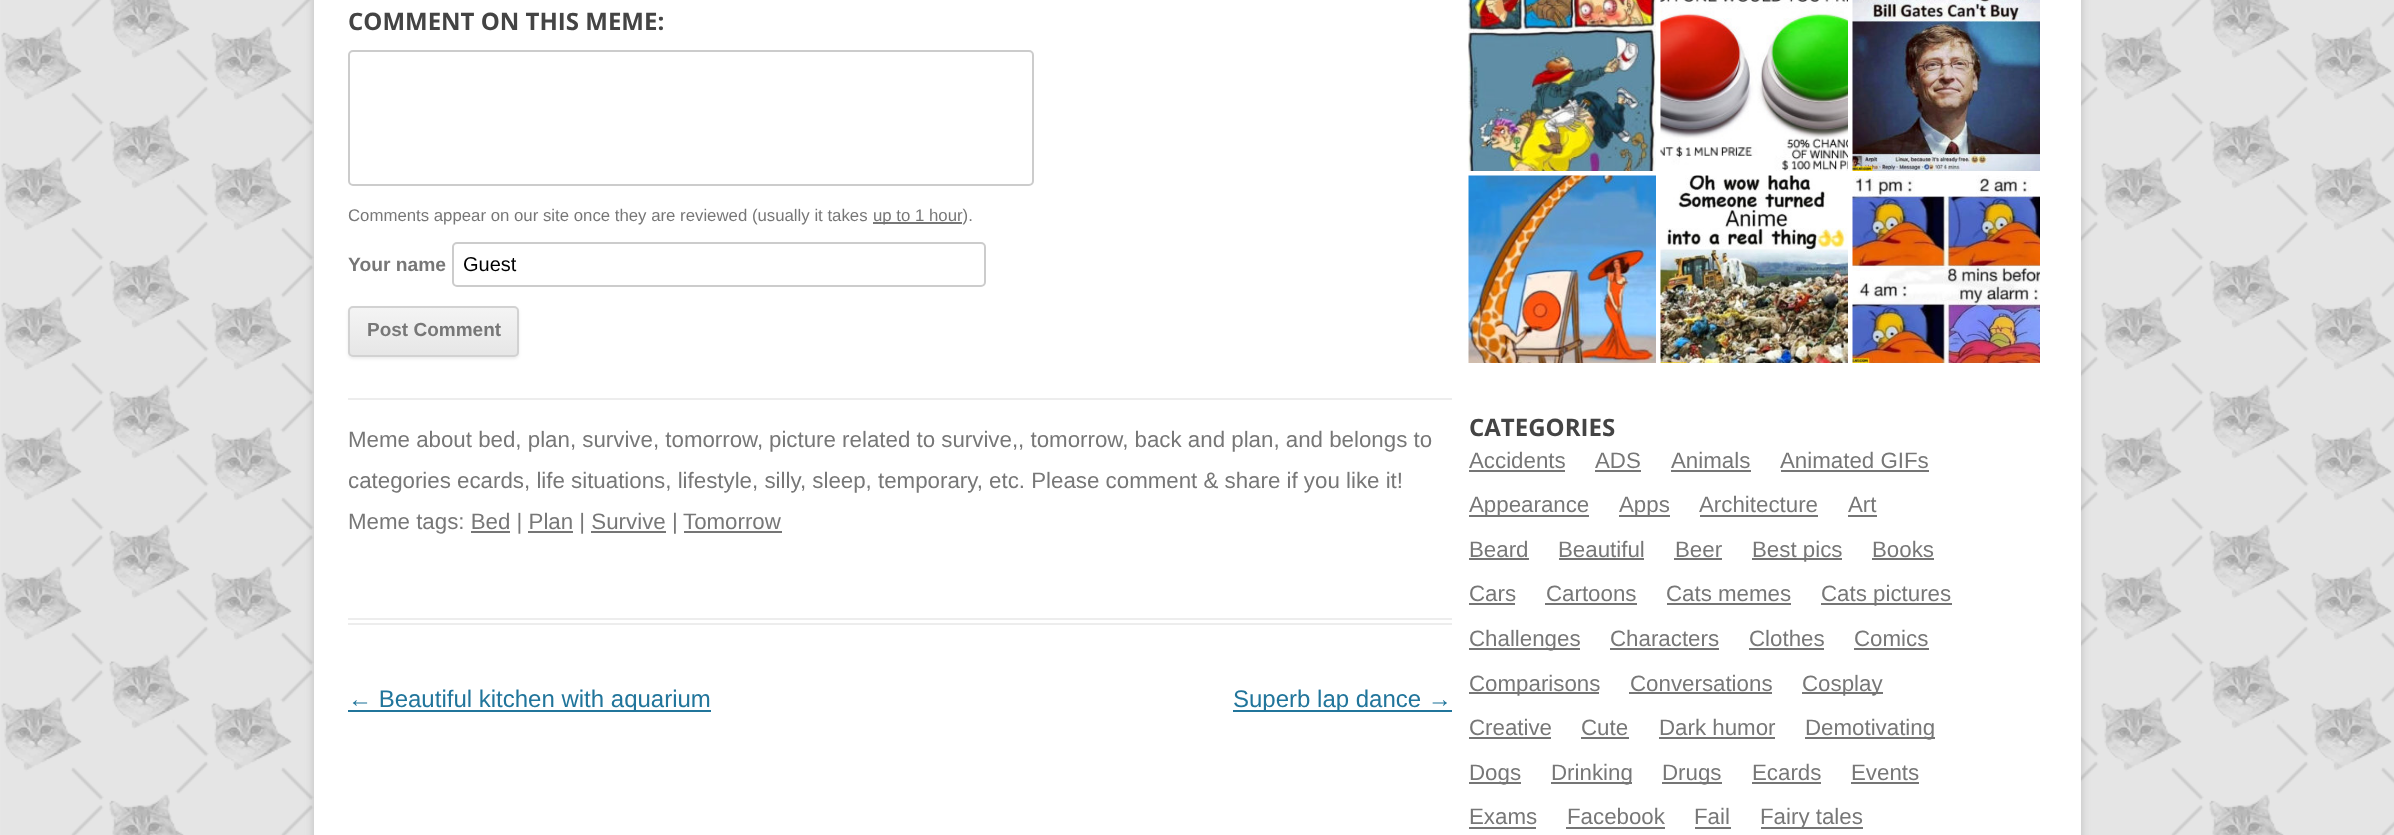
<svg xmlns="http://www.w3.org/2000/svg" xmlns:xlink="http://www.w3.org/1999/xlink" width="2394" height="835" viewBox="0 0 2394 835">
<style>
.cls-1{font:bold 24px Open Sans;fill:#444444}
.cls-2{font:16.8px Liberation Sans;fill:#777777}
.cls-3{font:bold 19.25px Liberation Sans;fill:#777777}
.cls-4{font:20px Liberation Sans;fill:#000000}
.cls-5{font:bold 19px Liberation Sans;fill:#777777}
.cls-6{font:22.3px Liberation Sans;fill:#777777}
.cls-7{font:24px Liberation Sans;fill:#21759b}
</style>
<defs>
<clipPath id="clip1"><rect x="348" y="306" width="171" height="51" rx="5"/></clipPath>
<linearGradient id="g1" gradientUnits="userSpaceOnUse" x1="434" y1="308" x2="434" y2="356"><stop offset="0" stop-color="#f4f4f4"/><stop offset="1" stop-color="#e6e6e6"/></linearGradient>
</defs>
<rect width="100%" height="100%" fill="#e6e6e6"/>
<image xlink:href="image0.png" x="1" y="0" width="2393" height="835"/>
<rect fill="#646464" fill-opacity="0.3" filter="blur(4.5px)" x="314" y="-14" width="1767" height="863"/>
<rect fill="#ffffff" x="314" y="0" width="1767" height="835"/>
<rect fill="#ededed" x="348" y="618" width="1104" height="2"/>
<rect fill="#ededed" x="348" y="623" width="1104" height="2"/>
<rect fill="none" stroke="#cccccc" stroke-width="2" x="349" y="51" width="684" height="134" rx="4"/>
<rect fill="#777777" x="873" y="222" width="89" height="2"/>
<rect fill="none" stroke="#cccccc" stroke-width="2" x="453" y="243" width="532" height="43" rx="4"/>
<rect fill="#404040" fill-opacity="0.1" filter="blur(1.5px)" x="348" y="308" width="171" height="51" rx="5"/>
<g clip-path="url(#clip1)">
<rect fill="url(#g1)" x="348" y="308" width="171" height="48"/>
</g>
<rect fill="none" stroke="#d2d2d2" stroke-width="2" x="349" y="307" width="169" height="49" rx="4"/>
<rect fill="#ededed" x="348" y="398" width="1104" height="2"/>
<rect fill="#757575" x="684" y="531" width="98" height="2"/>
<rect fill="#21759b" x="348" y="710" width="363" height="2"/>
<rect fill="#21759b" x="1233" y="710" width="219" height="2"/>
<image xlink:href="image1.png" x="1468" y="0" width="188" height="171"/>
<image xlink:href="image2.png" x="1660" y="0" width="188" height="171"/>
<image xlink:href="image3.png" x="1852" y="0" width="188" height="171"/>
<image xlink:href="image4.png" x="1468" y="175" width="188" height="188"/>
<image xlink:href="image5.png" x="1660" y="175" width="188" height="188"/>
<image xlink:href="image6.png" x="1852" y="175" width="188" height="188"/>
<rect fill="#757575" x="1469" y="470" width="96" height="2"/>
<rect fill="#757575" x="1595" y="470" width="46" height="2"/>
<rect fill="#757575" x="1671" y="470" width="80" height="2"/>
<rect fill="#757575" x="1781" y="470" width="148" height="2"/>
<rect fill="#757575" x="1469" y="515" width="120" height="2"/>
<rect fill="#757575" x="1619" y="515" width="51" height="2"/>
<rect fill="#757575" x="1700" y="515" width="118" height="2"/>
<rect fill="#757575" x="1848" y="515" width="29" height="2"/>
<rect fill="#757575" x="1469" y="558" width="60" height="2"/>
<rect fill="#757575" x="1559" y="558" width="85" height="2"/>
<rect fill="#757575" x="1674" y="558" width="48" height="2"/>
<rect fill="#757575" x="1752" y="558" width="90" height="2"/>
<rect fill="#757575" x="1872" y="558" width="62" height="2"/>
<rect fill="#757575" x="1469" y="603" width="46" height="2"/>
<rect fill="#757575" x="1545" y="603" width="92" height="2"/>
<rect fill="#757575" x="1667" y="603" width="124" height="2"/>
<rect fill="#757575" x="1821" y="603" width="131" height="2"/>
<rect fill="#757575" x="1469" y="648" width="111" height="2"/>
<rect fill="#757575" x="1610" y="648" width="109" height="2"/>
<rect fill="#757575" x="1749" y="648" width="75" height="2"/>
<rect fill="#757575" x="1854" y="648" width="75" height="2"/>
<rect fill="#757575" x="1469" y="692" width="130" height="2"/>
<rect fill="#757575" x="1629" y="692" width="143" height="2"/>
<rect fill="#757575" x="1802" y="692" width="81" height="2"/>
<rect fill="#757575" x="1469" y="737" width="82" height="2"/>
<rect fill="#757575" x="1581" y="737" width="48" height="2"/>
<rect fill="#757575" x="1659" y="737" width="116" height="2"/>
<rect fill="#757575" x="1805" y="737" width="130" height="2"/>
<rect fill="#757575" x="1469" y="782" width="52" height="2"/>
<rect fill="#757575" x="1551" y="782" width="81" height="2"/>
<rect fill="#757575" x="1662" y="782" width="60" height="2"/>
<rect fill="#757575" x="1752" y="782" width="69" height="2"/>
<rect fill="#757575" x="1851" y="782" width="68" height="2"/>
<rect fill="#757575" x="1469" y="827" width="67" height="2"/>
<rect fill="#757575" x="1566" y="827" width="99" height="2"/>
<rect fill="#757575" x="1695" y="827" width="36" height="2"/>
<rect fill="#757575" x="1761" y="827" width="102" height="2"/>
<text class="cls-1" x="348" y="30">COMMENT ON THIS MEME:</text>
<text class="cls-2" x="348" y="221">Comments appear on our site once they are reviewed (usually it takes</text>
<text class="cls-2" x="873" y="221">up to 1 hour).</text>
<text class="cls-3" x="348" y="271">Your name</text>
<text class="cls-4" x="463" y="271">Guest</text>
<text class="cls-5" x="367" y="336">Post Comment</text>
<text class="cls-6" x="348" y="447">Meme about bed, plan, survive, tomorrow,</text>
<text class="cls-6" x="769" y="447">picture related to survive,, tomorrow, back and plan, and belongs to</text>
<text class="cls-6"><tspan x="348" y="488">categories ecards, life situations, lifestyle, silly, sleep, temporary, etc. Please comment &amp; share if you like it!</tspan><tspan x="348" y="529">Meme tags: Bed | Plan | Survive |</tspan></text>
<text class="cls-6" x="683" y="529">Tomorrow</text>
<rect fill="#757575" x="471" y="531" width="39" height="2"/>
<rect fill="#757575" x="528" y="531" width="45" height="2"/>
<rect fill="#757575" x="591" y="531" width="75" height="2"/>
<text class="cls-7" x="348" y="707">← Beautiful kitchen with aquarium</text>
<text class="cls-7" x="1233" y="707">Superb lap dance →</text>
<text class="cls-1" x="1469" y="436">CATEGORIES</text>
<text class="cls-6" x="1469" y="468">Accidents</text>
<text class="cls-6" x="1595" y="468">ADS</text>
<text class="cls-6" x="1671" y="468">Animals</text>
<text class="cls-6" x="1780" y="468">Animated GIFs</text>
<text class="cls-6" x="1469" y="512">Appearance</text>
<text class="cls-6" x="1619" y="512">Apps</text>
<text class="cls-6" x="1699" y="512">Architecture</text>
<text class="cls-6" x="1848" y="512">Art</text>
<text class="cls-6" x="1469" y="557">Beard</text>
<text class="cls-6" x="1558" y="557">Beautiful</text>
<text class="cls-6" x="1675" y="557">Beer</text>
<text class="cls-6" x="1752" y="557">Best pics</text>
<text class="cls-6" x="1872" y="557">Books</text>
<text class="cls-6" x="1469" y="601">Cars</text>
<text class="cls-6" x="1546" y="601">Cartoons</text>
<text class="cls-6" x="1666" y="601">Cats memes</text>
<text class="cls-6" x="1821" y="601">Cats pictures</text>
<text class="cls-6" x="1469" y="646">Challenges</text>
<text class="cls-6" x="1610" y="646">Characters</text>
<text class="cls-6" x="1749" y="646">Clothes</text>
<text class="cls-6" x="1854" y="646">Comics</text>
<text class="cls-6" x="1469" y="691">Comparisons</text>
<text class="cls-6" x="1630" y="691">Conversations</text>
<text class="cls-6" x="1802" y="691">Cosplay</text>
<text class="cls-6" x="1469" y="735">Creative</text>
<text class="cls-6" x="1581" y="735">Cute</text>
<text class="cls-6" x="1659" y="735">Dark humor</text>
<text class="cls-6" x="1805" y="735">Demotivating</text>
<text class="cls-6" x="1469" y="780">Dogs</text>
<text class="cls-6" x="1551" y="780">Drinking</text>
<text class="cls-6" x="1662" y="780">Drugs</text>
<text class="cls-6" x="1752" y="780">Ecards</text>
<text class="cls-6" x="1851" y="780">Events</text>
<text class="cls-6" x="1469" y="824">Exams</text>
<text class="cls-6" x="1567" y="824">Facebook</text>
<text class="cls-6" x="1694" y="824">Fail</text>
<text class="cls-6" x="1760" y="824">Fairy tales</text>
</svg>
